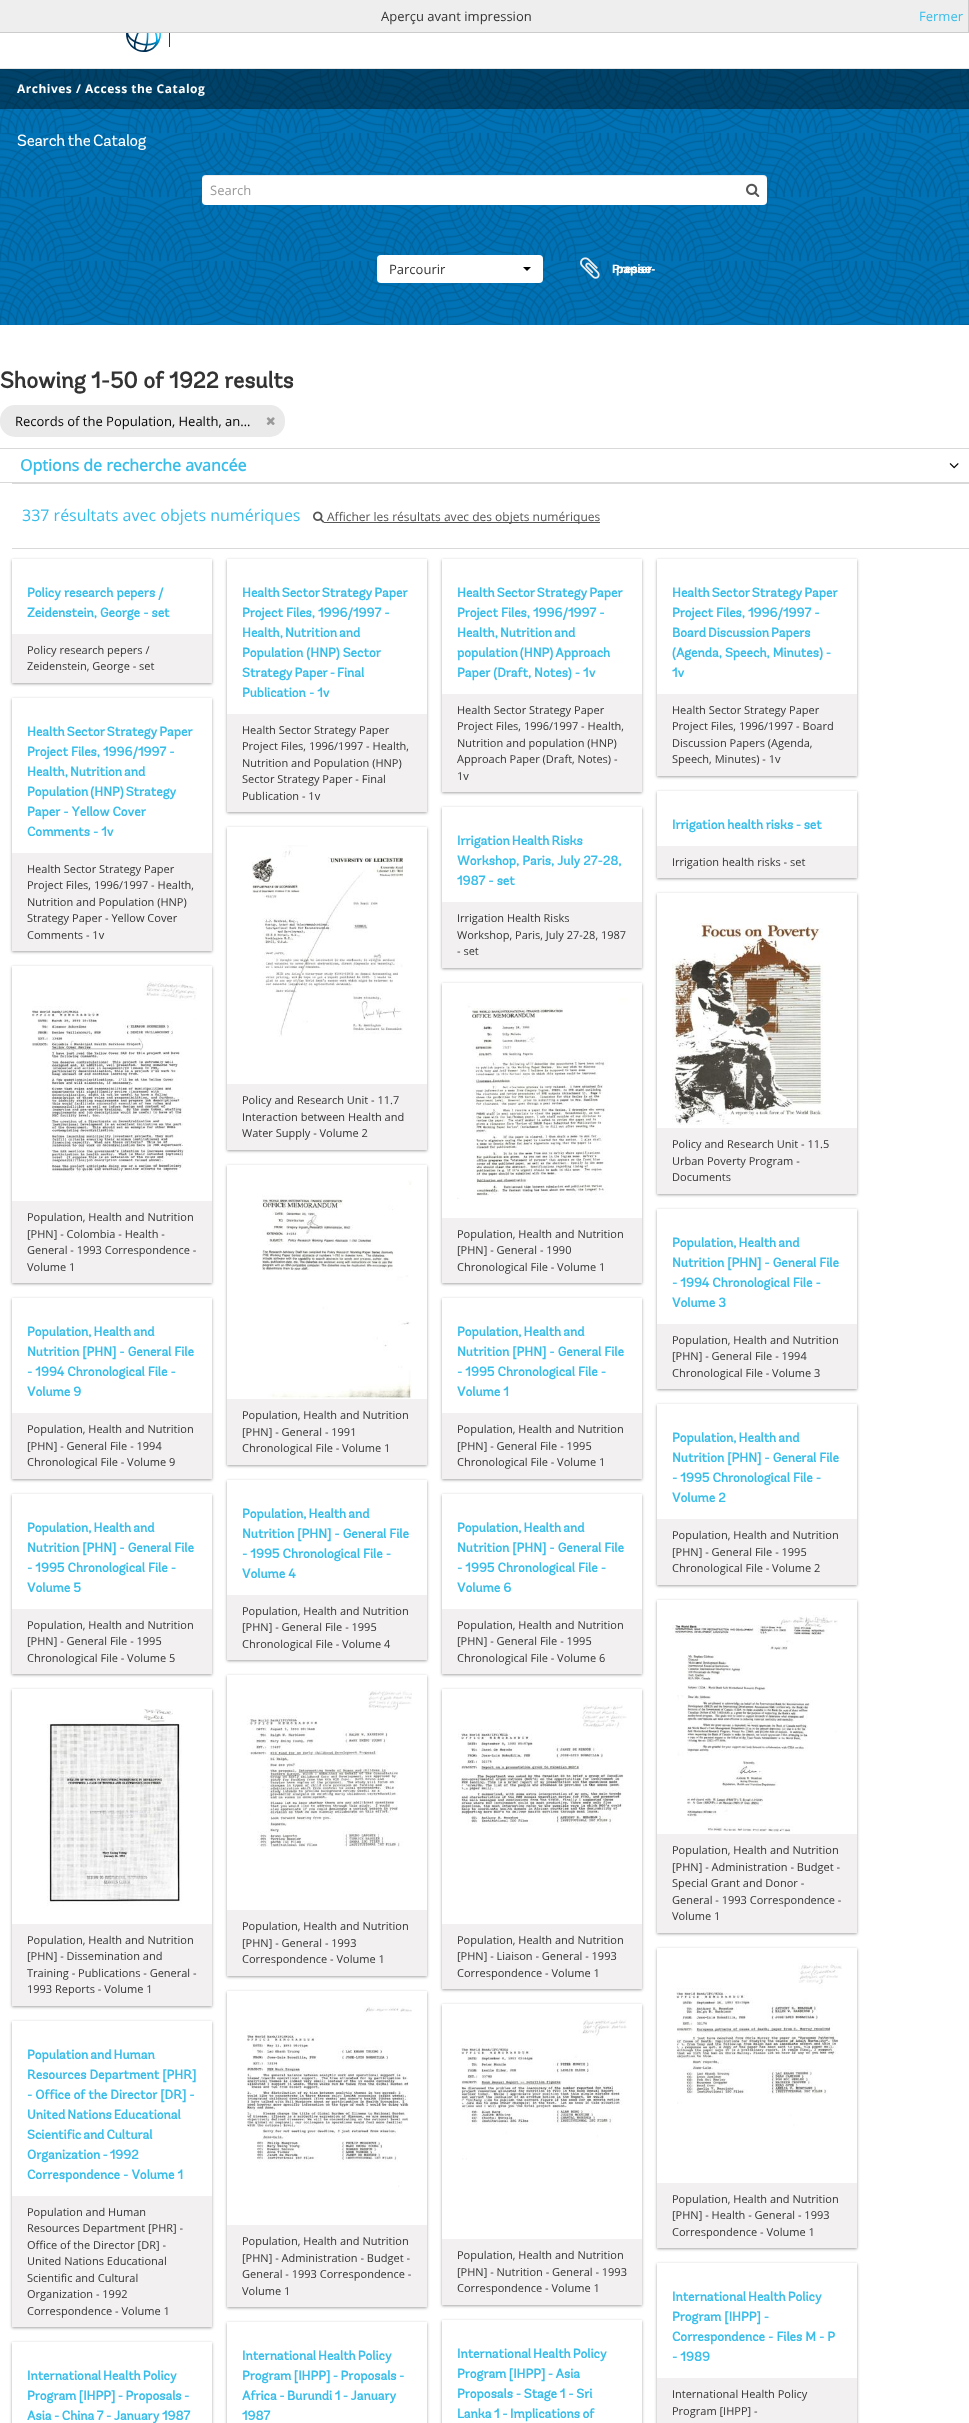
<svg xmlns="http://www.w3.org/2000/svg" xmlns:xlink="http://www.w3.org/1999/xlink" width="969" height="2423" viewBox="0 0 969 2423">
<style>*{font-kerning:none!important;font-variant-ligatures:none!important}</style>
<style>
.cls-1{font:13px Open Sans;fill:#333333}
.cls-2{font:13px Open Sans;fill:#39beea}
.cls-3{font:bold 22.75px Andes;fill:#333333}
.cls-4{font:13px Open Sans;fill:#000000}
.cls-5{font:bold 16px 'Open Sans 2';fill:#39beea}
.cls-6{font:16px Open Sans;fill:#39beea}
.cls-7{font:12px Open Sans;fill:#555555}
.cls-8{font:bold 13px Andes;fill:#39beea}
.cls-9{font:11px Open Sans;fill:#333333}
.cls-10{font:bold 12px Open Sans;letter-spacing:0.5px;fill:#ffffff}
.cls-11{font:16.25px Andes;letter-spacing:-0.25px;fill:#ffffff}
.cls-12{font:13px Open Sans;fill:#999999}
.cls-13{font:bold 12px Liberation Sans;fill:#ffffff}
</style>
<defs>
<clipPath id="clip1"><path d="M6 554H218V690H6ZM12 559H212V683H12Z" clip-rule="evenodd"/></clipPath>
<clipPath id="clip2"><path d="M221 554H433V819H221ZM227 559H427V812H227Z" clip-rule="evenodd"/></clipPath>
<clipPath id="clip3"><path d="M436 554H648V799H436ZM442 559H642V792H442Z" clip-rule="evenodd"/></clipPath>
<clipPath id="clip4"><path d="M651 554H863V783H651ZM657 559H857V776H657Z" clip-rule="evenodd"/></clipPath>
<clipPath id="clip5"><path d="M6 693H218V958H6ZM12 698H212V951H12Z" clip-rule="evenodd"/></clipPath>
<clipPath id="clip6"><path d="M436 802H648V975H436ZM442 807H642V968H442Z" clip-rule="evenodd"/></clipPath>
<clipPath id="clip7"><path d="M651 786H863V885H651ZM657 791H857V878H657Z" clip-rule="evenodd"/></clipPath>
<clipPath id="clip8"><path d="M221 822H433V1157H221ZM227 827H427V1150H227Z" clip-rule="evenodd"/></clipPath>
<clipPath id="clip9"><path d="M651 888H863V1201H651ZM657 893H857V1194H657Z" clip-rule="evenodd"/></clipPath>
<clipPath id="clip10"><path d="M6 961H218V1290H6ZM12 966H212V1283H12Z" clip-rule="evenodd"/></clipPath>
<clipPath id="clip11"><path d="M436 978H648V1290H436ZM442 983H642V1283H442Z" clip-rule="evenodd"/></clipPath>
<clipPath id="clip12"><path d="M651 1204H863V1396H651ZM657 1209H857V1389H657Z" clip-rule="evenodd"/></clipPath>
<clipPath id="clip13"><path d="M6 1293H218V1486H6ZM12 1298H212V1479H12Z" clip-rule="evenodd"/></clipPath>
<clipPath id="clip14"><path d="M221 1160H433V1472H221ZM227 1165H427V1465H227Z" clip-rule="evenodd"/></clipPath>
<clipPath id="clip15"><path d="M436 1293H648V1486H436ZM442 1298H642V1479H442Z" clip-rule="evenodd"/></clipPath>
<clipPath id="clip16"><path d="M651 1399H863V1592H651ZM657 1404H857V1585H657Z" clip-rule="evenodd"/></clipPath>
<clipPath id="clip17"><path d="M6 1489H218V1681H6ZM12 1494H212V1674H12Z" clip-rule="evenodd"/></clipPath>
<clipPath id="clip18"><path d="M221 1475H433V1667H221ZM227 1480H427V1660H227Z" clip-rule="evenodd"/></clipPath>
<clipPath id="clip19"><path d="M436 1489H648V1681H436ZM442 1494H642V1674H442Z" clip-rule="evenodd"/></clipPath>
<clipPath id="clip20"><path d="M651 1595H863V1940H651ZM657 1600H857V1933H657Z" clip-rule="evenodd"/></clipPath>
<clipPath id="clip21"><path d="M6 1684H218V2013H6ZM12 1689H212V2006H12Z" clip-rule="evenodd"/></clipPath>
<clipPath id="clip22"><path d="M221 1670H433V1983H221ZM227 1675H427V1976H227Z" clip-rule="evenodd"/></clipPath>
<clipPath id="clip23"><path d="M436 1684H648V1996H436ZM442 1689H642V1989H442Z" clip-rule="evenodd"/></clipPath>
<clipPath id="clip24"><path d="M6 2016H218V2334H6ZM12 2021H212V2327H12Z" clip-rule="evenodd"/></clipPath>
<clipPath id="clip25"><path d="M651 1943H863V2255H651ZM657 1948H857V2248H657Z" clip-rule="evenodd"/></clipPath>
<clipPath id="clip26"><path d="M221 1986H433V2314H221ZM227 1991H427V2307H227Z" clip-rule="evenodd"/></clipPath>
<clipPath id="clip27"><path d="M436 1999H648V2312H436ZM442 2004H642V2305H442Z" clip-rule="evenodd"/></clipPath>
<clipPath id="clip28"><path d="M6 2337H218V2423H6ZM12 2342H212V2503H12Z" clip-rule="evenodd"/></clipPath>
<clipPath id="clip29"><path d="M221 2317H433V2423H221ZM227 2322H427V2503H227Z" clip-rule="evenodd"/></clipPath>
<clipPath id="clip30"><path d="M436 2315H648V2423H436ZM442 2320H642V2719H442Z" clip-rule="evenodd"/></clipPath>
<clipPath id="clip31"><path d="M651 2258H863V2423H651ZM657 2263H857V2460H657Z" clip-rule="evenodd"/></clipPath>
</defs>
<rect width="100%" height="100%" fill="#ffffff"/>
<rect fill="#eeeeee" x="0" y="0" width="968" height="32"/>
<rect fill="#cccccc" x="968" y="0" width="1" height="33"/>
<rect fill="#cccccc" x="0" y="32" width="969" height="1"/>
<rect fill="#eaeaea" x="0" y="405" width="285" height="32" rx="15"/>
<image xlink:href="image0.png" x="266" y="417" width="9" height="8"/>
<rect fill="#d9d9d9" x="0" y="448" width="969" height="1"/>
<rect fill="#d9d9d9" x="0" y="482" width="969" height="1"/>
<image xlink:href="image1.png" x="949" y="463" width="10" height="6"/>
<rect fill="#d9d9d9" x="12" y="483" width="957" height="1"/>
<rect fill="#d9d9d9" x="12" y="548" width="957" height="1"/>
<image xlink:href="image2.png" x="313" y="511" width="12" height="12"/>
<rect fill="#555555" x="324" y="522" width="276" height="1"/>
<g clip-path="url(#clip1)">
<rect fill="#191919" fill-opacity="0.4" filter="blur(1.5px)" x="12" y="560" width="200" height="124"/>
</g>
<rect fill="#f2f0f0" x="12" y="634" width="200" height="49"/>
<g clip-path="url(#clip2)">
<rect fill="#191919" fill-opacity="0.4" filter="blur(1.5px)" x="227" y="560" width="200" height="253"/>
</g>
<rect fill="#f2f0f0" x="227" y="714" width="200" height="98"/>
<g clip-path="url(#clip3)">
<rect fill="#191919" fill-opacity="0.4" filter="blur(1.5px)" x="442" y="560" width="200" height="233"/>
</g>
<rect fill="#f2f0f0" x="442" y="694" width="200" height="98"/>
<g clip-path="url(#clip4)">
<rect fill="#191919" fill-opacity="0.4" filter="blur(1.5px)" x="657" y="560" width="200" height="217"/>
</g>
<rect fill="#f2f0f0" x="657" y="694" width="200" height="82"/>
<g clip-path="url(#clip5)">
<rect fill="#191919" fill-opacity="0.4" filter="blur(1.5px)" x="12" y="699" width="200" height="253"/>
</g>
<rect fill="#f2f0f0" x="12" y="853" width="200" height="98"/>
<g clip-path="url(#clip6)">
<rect fill="#191919" fill-opacity="0.4" filter="blur(1.5px)" x="442" y="808" width="200" height="161"/>
</g>
<rect fill="#f2f0f0" x="442" y="902" width="200" height="66"/>
<g clip-path="url(#clip7)">
<rect fill="#191919" fill-opacity="0.4" filter="blur(1.5px)" x="657" y="792" width="200" height="87"/>
</g>
<rect fill="#f2f0f0" x="657" y="846" width="200" height="32"/>
<g clip-path="url(#clip8)">
<rect fill="#191919" fill-opacity="0.4" filter="blur(1.5px)" x="227" y="828" width="200" height="323"/>
</g>
<image xlink:href="image3.png" x="252" y="845" width="151" height="192"/>
<rect fill="#f2f0f0" x="227" y="1084" width="200" height="66"/>
<g clip-path="url(#clip9)">
<rect fill="#191919" fill-opacity="0.4" filter="blur(1.5px)" x="657" y="894" width="200" height="301"/>
</g>
<image xlink:href="image4.png" x="672" y="918" width="151" height="207"/>
<rect fill="#f2f0f0" x="657" y="1128" width="200" height="66"/>
<g clip-path="url(#clip10)">
<rect fill="#191919" fill-opacity="0.4" filter="blur(1.5px)" x="12" y="967" width="200" height="317"/>
</g>
<image xlink:href="image5.png" x="32" y="981" width="165" height="192"/>
<rect fill="#f2f0f0" x="12" y="1201" width="200" height="82"/>
<g clip-path="url(#clip11)">
<rect fill="#191919" fill-opacity="0.4" filter="blur(1.5px)" x="442" y="984" width="200" height="300"/>
</g>
<image xlink:href="image6.png" x="457" y="998" width="170" height="201"/>
<rect fill="#f2f0f0" x="442" y="1218" width="200" height="65"/>
<g clip-path="url(#clip12)">
<rect fill="#191919" fill-opacity="0.4" filter="blur(1.5px)" x="657" y="1210" width="200" height="180"/>
</g>
<rect fill="#f2f0f0" x="657" y="1324" width="200" height="65"/>
<g clip-path="url(#clip13)">
<rect fill="#191919" fill-opacity="0.4" filter="blur(1.5px)" x="12" y="1299" width="200" height="181"/>
</g>
<rect fill="#f2f0f0" x="12" y="1413" width="200" height="66"/>
<g clip-path="url(#clip14)">
<rect fill="#191919" fill-opacity="0.4" filter="blur(1.5px)" x="227" y="1166" width="200" height="300"/>
</g>
<image xlink:href="image7.png" x="262" y="1180" width="150" height="219"/>
<rect fill="#f2f0f0" x="227" y="1399" width="200" height="66"/>
<g clip-path="url(#clip15)">
<rect fill="#191919" fill-opacity="0.4" filter="blur(1.5px)" x="442" y="1299" width="200" height="181"/>
</g>
<rect fill="#f2f0f0" x="442" y="1413" width="200" height="66"/>
<g clip-path="url(#clip16)">
<rect fill="#191919" fill-opacity="0.4" filter="blur(1.5px)" x="657" y="1405" width="200" height="181"/>
</g>
<rect fill="#f2f0f0" x="657" y="1519" width="200" height="66"/>
<g clip-path="url(#clip17)">
<rect fill="#191919" fill-opacity="0.4" filter="blur(1.5px)" x="12" y="1495" width="200" height="180"/>
</g>
<rect fill="#f2f0f0" x="12" y="1609" width="200" height="65"/>
<g clip-path="url(#clip18)">
<rect fill="#191919" fill-opacity="0.4" filter="blur(1.5px)" x="227" y="1481" width="200" height="180"/>
</g>
<rect fill="#f2f0f0" x="227" y="1595" width="200" height="65"/>
<g clip-path="url(#clip19)">
<rect fill="#191919" fill-opacity="0.4" filter="blur(1.5px)" x="442" y="1495" width="200" height="180"/>
</g>
<rect fill="#f2f0f0" x="442" y="1609" width="200" height="65"/>
<g clip-path="url(#clip20)">
<rect fill="#191919" fill-opacity="0.4" filter="blur(1.5px)" x="657" y="1601" width="200" height="333"/>
</g>
<image xlink:href="image8.png" x="672" y="1615" width="166" height="219"/>
<rect fill="#f2f0f0" x="657" y="1834" width="200" height="99"/>
<g clip-path="url(#clip21)">
<rect fill="#191919" fill-opacity="0.4" filter="blur(1.5px)" x="12" y="1690" width="200" height="317"/>
</g>
<image xlink:href="image9.png" x="47" y="1709" width="135" height="197"/>
<rect fill="#f2f0f0" x="12" y="1924" width="200" height="82"/>
<g clip-path="url(#clip22)">
<rect fill="#191919" fill-opacity="0.4" filter="blur(1.5px)" x="227" y="1676" width="200" height="301"/>
</g>
<image xlink:href="image10.png" x="247" y="1690" width="165" height="157"/>
<rect fill="#f2f0f0" x="227" y="1910" width="200" height="66"/>
<g clip-path="url(#clip23)">
<rect fill="#191919" fill-opacity="0.4" filter="blur(1.5px)" x="442" y="1690" width="200" height="300"/>
</g>
<image xlink:href="image11.png" x="458" y="1704" width="169" height="121"/>
<rect fill="#f2f0f0" x="442" y="1924" width="200" height="65"/>
<g clip-path="url(#clip24)">
<rect fill="#191919" fill-opacity="0.4" filter="blur(1.5px)" x="12" y="2022" width="200" height="306"/>
</g>
<rect fill="#f2f0f0" x="12" y="2196" width="200" height="131"/>
<g clip-path="url(#clip25)">
<rect fill="#191919" fill-opacity="0.4" filter="blur(1.5px)" x="657" y="1949" width="200" height="300"/>
</g>
<image xlink:href="image12.png" x="676" y="1963" width="166" height="163"/>
<rect fill="#f2f0f0" x="657" y="2183" width="200" height="65"/>
<g clip-path="url(#clip26)">
<rect fill="#191919" fill-opacity="0.4" filter="blur(1.5px)" x="227" y="1992" width="200" height="316"/>
</g>
<image xlink:href="image13.png" x="247" y="2006" width="165" height="181"/>
<rect fill="#f2f0f0" x="227" y="2225" width="200" height="82"/>
<g clip-path="url(#clip27)">
<rect fill="#191919" fill-opacity="0.4" filter="blur(1.5px)" x="442" y="2005" width="200" height="301"/>
</g>
<image xlink:href="image14.png" x="461" y="2019" width="166" height="141"/>
<rect fill="#f2f0f0" x="442" y="2239" width="200" height="66"/>
<g clip-path="url(#clip28)">
<rect fill="#191919" fill-opacity="0.4" filter="blur(1.5px)" x="12" y="2343" width="200" height="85"/>
</g>
<g clip-path="url(#clip29)">
<rect fill="#191919" fill-opacity="0.4" filter="blur(1.5px)" x="227" y="2323" width="200" height="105"/>
</g>
<g clip-path="url(#clip30)">
<rect fill="#191919" fill-opacity="0.4" filter="blur(1.5px)" x="442" y="2321" width="200" height="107"/>
</g>
<g clip-path="url(#clip31)">
<rect fill="#191919" fill-opacity="0.4" filter="blur(1.5px)" x="657" y="2264" width="200" height="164"/>
</g>
<rect fill="#f2f0f0" x="657" y="2378" width="200" height="45"/>
<rect fill="#e6e6e6" x="0" y="68" width="969" height="1"/>
<image xlink:href="image15.png" x="126" y="33" width="35" height="19"/>
<rect fill="#333333" x="169" y="33" width="1" height="14"/>
<image xlink:href="image16.png" x="0" y="69" width="969" height="256"/>
<rect fill="#000000" fill-opacity="0.42" x="0" y="69" width="969" height="40"/>
<rect fill="#ffffff" x="202" y="175" width="565" height="30" rx="4"/>
<path fill="#000000" fill-opacity="0.07" d="M206 176H763C765 176 767 178 767 180C767 177 766 175 763 175H206C203 175 202 177 202 180C202 178 204 176 206 176Z"/>
<image xlink:href="image17.png" x="746" y="183" width="14" height="14"/>
<rect fill="#ffffff" x="377" y="255" width="166" height="28" rx="4"/>
<path fill="#ffffff" fill-opacity="0.2" d="M381 256H539C541 256 543 258 543 260V259C543 257 541 255 539 255H381C379 255 377 257 377 259V260C377 258 379 256 381 256Z"/>
<path fill="#000000" d="M523 267H531L527 271Z"/>
<image xlink:href="image18.png" x="580" y="257" width="20" height="22"/>
<text class="cls-1" x="381" y="21">Aperçu avant impression</text>
<text class="cls-2" x="919" y="21">Fermer</text>
<text class="cls-3" x="0" y="388">Showing 1-50 of 1922 results</text>
<text class="cls-4" x="15" y="426">Records of the Population, Health, an…</text>
<text class="cls-5" x="20" y="471">Options de recherche avancée</text>
<text class="cls-6" x="22" y="521">337 résultats avec objets numériques</text>
<text class="cls-7" x="327" y="521">Afficher les résultats avec des objets numériques</text>
<text class="cls-8"><tspan x="27" y="597">Policy research pepers /</tspan><tspan x="27" y="617">Zeidenstein, George - set</tspan></text>
<text class="cls-9"><tspan x="27" y="654">Policy research pepers /</tspan><tspan x="27" y="670">Zeidenstein, George - set</tspan></text>
<text class="cls-8"><tspan x="242" y="597" word-spacing="-1">Health Sector Strategy Paper</tspan><tspan x="242" y="617">Project Files, 1996/1997 -</tspan><tspan x="242" y="637" word-spacing="-1">Health, Nutrition and</tspan><tspan x="242" y="657">Population (HNP) Sector</tspan><tspan x="242" y="677" word-spacing="-1">Strategy Paper - Final</tspan><tspan x="242" y="697">Publication - 1v</tspan></text>
<text class="cls-9"><tspan x="242" y="734">Health Sector Strategy Paper</tspan><tspan x="242" y="750">Project Files, 1996/1997 - Health,</tspan><tspan x="242" y="767">Nutrition and Population (HNP)</tspan><tspan x="242" y="783">Sector Strategy Paper - Final</tspan><tspan x="242" y="800">Publication - 1v</tspan></text>
<text class="cls-8"><tspan x="457" y="597" word-spacing="-1">Health Sector Strategy Paper</tspan><tspan x="457" y="617">Project Files, 1996/1997 -</tspan><tspan x="457" y="637" word-spacing="-1">Health, Nutrition and</tspan><tspan x="457" y="657" word-spacing="-1">population (HNP) Approach</tspan><tspan x="457" y="677">Paper (Draft, Notes) - 1v</tspan></text>
<text class="cls-9"><tspan x="457" y="714">Health Sector Strategy Paper</tspan><tspan x="457" y="730">Project Files, 1996/1997 - Health,</tspan><tspan x="457" y="747">Nutrition and population (HNP)</tspan><tspan x="457" y="763">Approach Paper (Draft, Notes) -</tspan><tspan x="457" y="780">1v</tspan></text>
<text class="cls-8"><tspan x="672" y="597" word-spacing="-1">Health Sector Strategy Paper</tspan><tspan x="672" y="617">Project Files, 1996/1997 -</tspan><tspan x="672" y="637" word-spacing="-1">Board Discussion Papers</tspan><tspan x="672" y="657">(Agenda, Speech, Minutes) -</tspan><tspan x="672" y="677">1v</tspan></text>
<text class="cls-9"><tspan x="672" y="714">Health Sector Strategy Paper</tspan><tspan x="672" y="730">Project Files, 1996/1997 - Board</tspan><tspan x="672" y="747">Discussion Papers (Agenda,</tspan><tspan x="672" y="763">Speech, Minutes) - 1v</tspan></text>
<text class="cls-8"><tspan x="27" y="736" word-spacing="-1">Health Sector Strategy Paper</tspan><tspan x="27" y="756">Project Files, 1996/1997 -</tspan><tspan x="27" y="776" word-spacing="-1">Health, Nutrition and</tspan><tspan x="27" y="796" word-spacing="-1">Population (HNP) Strategy</tspan><tspan x="27" y="816">Paper - Yellow Cover</tspan><tspan x="27" y="836">Comments - 1v</tspan></text>
<text class="cls-9"><tspan x="27" y="873">Health Sector Strategy Paper</tspan><tspan x="27" y="889">Project Files, 1996/1997 - Health,</tspan><tspan x="27" y="906">Nutrition and Population (HNP)</tspan><tspan x="27" y="922">Strategy Paper - Yellow Cover</tspan><tspan x="27" y="939">Comments - 1v</tspan></text>
<text class="cls-8"><tspan x="457" y="845" word-spacing="-1">Irrigation Health Risks</tspan><tspan x="457" y="865">Workshop, Paris, July 27-28,</tspan><tspan x="457" y="885">1987 - set</tspan></text>
<text class="cls-9"><tspan x="457" y="922">Irrigation Health Risks</tspan><tspan x="457" y="939">Workshop, Paris, July 27-28, 1987</tspan><tspan x="457" y="955">- set</tspan></text>
<text class="cls-8" x="672" y="829" word-spacing="-0.5">Irrigation health risks - set</text>
<text class="cls-9" x="672" y="866">Irrigation health risks - set</text>
<text class="cls-9"><tspan x="242" y="1104">Policy and Research Unit - 11.7</tspan><tspan x="242" y="1121">Interaction between Health and</tspan><tspan x="242" y="1137">Water Supply - Volume 2</tspan></text>
<text class="cls-9"><tspan x="672" y="1148">Policy and Research Unit - 11.5</tspan><tspan x="672" y="1165">Urban Poverty Program -</tspan><tspan x="672" y="1181">Documents</tspan></text>
<text class="cls-9"><tspan x="27" y="1221">Population, Health and Nutrition</tspan><tspan x="27" y="1238">[PHN] - Colombia - Health -</tspan><tspan x="27" y="1254">General - 1993 Correspondence -</tspan><tspan x="27" y="1271">Volume 1</tspan></text>
<text class="cls-9"><tspan x="457" y="1238">Population, Health and Nutrition</tspan><tspan x="457" y="1254">[PHN] - General - 1990</tspan><tspan x="457" y="1271">Chronological File - Volume 1</tspan></text>
<text class="cls-8"><tspan x="672" y="1247" word-spacing="-1">Population, Health and</tspan><tspan x="672" y="1267">Nutrition [PHN] - General File</tspan><tspan x="672" y="1287">- 1994 Chronological File -</tspan><tspan x="672" y="1307">Volume 3</tspan></text>
<text class="cls-9"><tspan x="672" y="1344">Population, Health and Nutrition</tspan><tspan x="672" y="1360">[PHN] - General File - 1994</tspan><tspan x="672" y="1377">Chronological File - Volume 3</tspan></text>
<text class="cls-8"><tspan x="27" y="1336" word-spacing="-1">Population, Health and</tspan><tspan x="27" y="1356">Nutrition [PHN] - General File</tspan><tspan x="27" y="1376">- 1994 Chronological File -</tspan><tspan x="27" y="1396">Volume 9</tspan></text>
<text class="cls-9"><tspan x="27" y="1433">Population, Health and Nutrition</tspan><tspan x="27" y="1450">[PHN] - General File - 1994</tspan><tspan x="27" y="1466">Chronological File - Volume 9</tspan></text>
<text class="cls-9"><tspan x="242" y="1419">Population, Health and Nutrition</tspan><tspan x="242" y="1436">[PHN] - General - 1991</tspan><tspan x="242" y="1452">Chronological File - Volume 1</tspan></text>
<text class="cls-8"><tspan x="457" y="1336" word-spacing="-1">Population, Health and</tspan><tspan x="457" y="1356">Nutrition [PHN] - General File</tspan><tspan x="457" y="1376">- 1995 Chronological File -</tspan><tspan x="457" y="1396">Volume 1</tspan></text>
<text class="cls-9"><tspan x="457" y="1433">Population, Health and Nutrition</tspan><tspan x="457" y="1450">[PHN] - General File - 1995</tspan><tspan x="457" y="1466">Chronological File - Volume 1</tspan></text>
<text class="cls-8"><tspan x="672" y="1442" word-spacing="-1">Population, Health and</tspan><tspan x="672" y="1462">Nutrition [PHN] - General File</tspan><tspan x="672" y="1482">- 1995 Chronological File -</tspan><tspan x="672" y="1502">Volume 2</tspan></text>
<text class="cls-9"><tspan x="672" y="1539">Population, Health and Nutrition</tspan><tspan x="672" y="1556">[PHN] - General File - 1995</tspan><tspan x="672" y="1572">Chronological File - Volume 2</tspan></text>
<text class="cls-8"><tspan x="27" y="1532" word-spacing="-1">Population, Health and</tspan><tspan x="27" y="1552">Nutrition [PHN] - General File</tspan><tspan x="27" y="1572">- 1995 Chronological File -</tspan><tspan x="27" y="1592">Volume 5</tspan></text>
<text class="cls-9"><tspan x="27" y="1629">Population, Health and Nutrition</tspan><tspan x="27" y="1645">[PHN] - General File - 1995</tspan><tspan x="27" y="1662">Chronological File - Volume 5</tspan></text>
<text class="cls-8"><tspan x="242" y="1518" word-spacing="-1">Population, Health and</tspan><tspan x="242" y="1538">Nutrition [PHN] - General File</tspan><tspan x="242" y="1558">- 1995 Chronological File -</tspan><tspan x="242" y="1578">Volume 4</tspan></text>
<text class="cls-9"><tspan x="242" y="1615">Population, Health and Nutrition</tspan><tspan x="242" y="1631">[PHN] - General File - 1995</tspan><tspan x="242" y="1648">Chronological File - Volume 4</tspan></text>
<text class="cls-8"><tspan x="457" y="1532" word-spacing="-1">Population, Health and</tspan><tspan x="457" y="1552">Nutrition [PHN] - General File</tspan><tspan x="457" y="1572">- 1995 Chronological File -</tspan><tspan x="457" y="1592">Volume 6</tspan></text>
<text class="cls-9"><tspan x="457" y="1629">Population, Health and Nutrition</tspan><tspan x="457" y="1645">[PHN] - General File - 1995</tspan><tspan x="457" y="1662">Chronological File - Volume 6</tspan></text>
<text class="cls-9"><tspan x="672" y="1854">Population, Health and Nutrition</tspan><tspan x="672" y="1871">[PHN] - Administration - Budget -</tspan><tspan x="672" y="1887">Special Grant and Donor -</tspan><tspan x="672" y="1904">General - 1993 Correspondence -</tspan><tspan x="672" y="1920">Volume 1</tspan></text>
<text class="cls-9"><tspan x="27" y="1944">Population, Health and Nutrition</tspan><tspan x="27" y="1960">[PHN] - Dissemination and</tspan><tspan x="27" y="1977">Training - Publications - General -</tspan><tspan x="27" y="1993">1993 Reports - Volume 1</tspan></text>
<text class="cls-9"><tspan x="242" y="1930">Population, Health and Nutrition</tspan><tspan x="242" y="1947">[PHN] - General - 1993</tspan><tspan x="242" y="1963">Correspondence - Volume 1</tspan></text>
<text class="cls-9"><tspan x="457" y="1944">Population, Health and Nutrition</tspan><tspan x="457" y="1960">[PHN] - Liaison - General - 1993</tspan><tspan x="457" y="1977">Correspondence - Volume 1</tspan></text>
<text class="cls-8"><tspan x="27" y="2059" word-spacing="-1">Population and Human</tspan><tspan x="27" y="2079">Resources Department [PHR]</tspan><tspan x="27" y="2099">- Office of the Director [DR] -</tspan><tspan x="27" y="2119" word-spacing="-1">United Nations Educational</tspan><tspan x="27" y="2139" word-spacing="-1">Scientific and Cultural</tspan><tspan x="27" y="2159" word-spacing="-1">Organization - 1992</tspan><tspan x="27" y="2179">Correspondence - Volume 1</tspan></text>
<text class="cls-9"><tspan x="27" y="2216">Population and Human</tspan><tspan x="27" y="2232">Resources Department [PHR] -</tspan><tspan x="27" y="2249">Office of the Director [DR] -</tspan><tspan x="27" y="2265">United Nations Educational</tspan><tspan x="27" y="2282">Scientific and Cultural</tspan><tspan x="27" y="2298">Organization - 1992</tspan><tspan x="27" y="2315">Correspondence - Volume 1</tspan></text>
<text class="cls-9"><tspan x="672" y="2203">Population, Health and Nutrition</tspan><tspan x="672" y="2219">[PHN] - Health - General - 1993</tspan><tspan x="672" y="2236">Correspondence - Volume 1</tspan></text>
<text class="cls-9"><tspan x="242" y="2245">Population, Health and Nutrition</tspan><tspan x="242" y="2262">[PHN] - Administration - Budget -</tspan><tspan x="242" y="2278">General - 1993 Correspondence -</tspan><tspan x="242" y="2295">Volume 1</tspan></text>
<text class="cls-9"><tspan x="457" y="2259">Population, Health and Nutrition</tspan><tspan x="457" y="2276">[PHN] - Nutrition - General - 1993</tspan><tspan x="457" y="2292">Correspondence - Volume 1</tspan></text>
<text class="cls-8"><tspan x="27" y="2380" word-spacing="-1">International Health Policy</tspan><tspan x="27" y="2400" word-spacing="-0.5">Program [IHPP] - Proposals -</tspan><tspan x="27" y="2420" word-spacing="-0.5">Asia - China 7 - January 1987</tspan></text>
<text class="cls-8"><tspan x="242" y="2360" word-spacing="-1">International Health Policy</tspan><tspan x="242" y="2380" word-spacing="-0.5">Program [IHPP] - Proposals -</tspan><tspan x="242" y="2400" word-spacing="-0.5">Africa - Burundi 1 - January</tspan><tspan x="242" y="2420">1987</tspan></text>
<text class="cls-8"><tspan x="457" y="2358" word-spacing="-1">International Health Policy</tspan><tspan x="457" y="2378" word-spacing="-0.5">Program [IHPP] - Asia</tspan><tspan x="457" y="2398" word-spacing="-0.25">Proposals - Stage 1 - Sri</tspan><tspan x="457" y="2418" word-spacing="-0.5">Lanka 1 - Implications of</tspan></text>
<text class="cls-8"><tspan x="672" y="2301" word-spacing="-1">International Health Policy</tspan><tspan x="672" y="2321">Program [IHPP] -</tspan><tspan x="672" y="2341">Correspondence - Files M - P</tspan><tspan x="672" y="2361">- 1989</tspan></text>
<text class="cls-9"><tspan x="672" y="2398">International Health Policy</tspan><tspan x="672" y="2415">Program [IHPP] -</tspan></text>
<text class="cls-10" x="17" y="93">Archives / Access the Catalog</text>
<text class="cls-11" x="17" y="146" word-spacing="-1">Search the Catalog</text>
<text class="cls-12" x="210" y="195">Search</text>
<text class="cls-1" x="389" y="274">Parcourir</text>
<text class="cls-13" x="612" y="273">Presse-</text>
<text class="cls-13" x="616" y="273">papier</text>
</svg>
